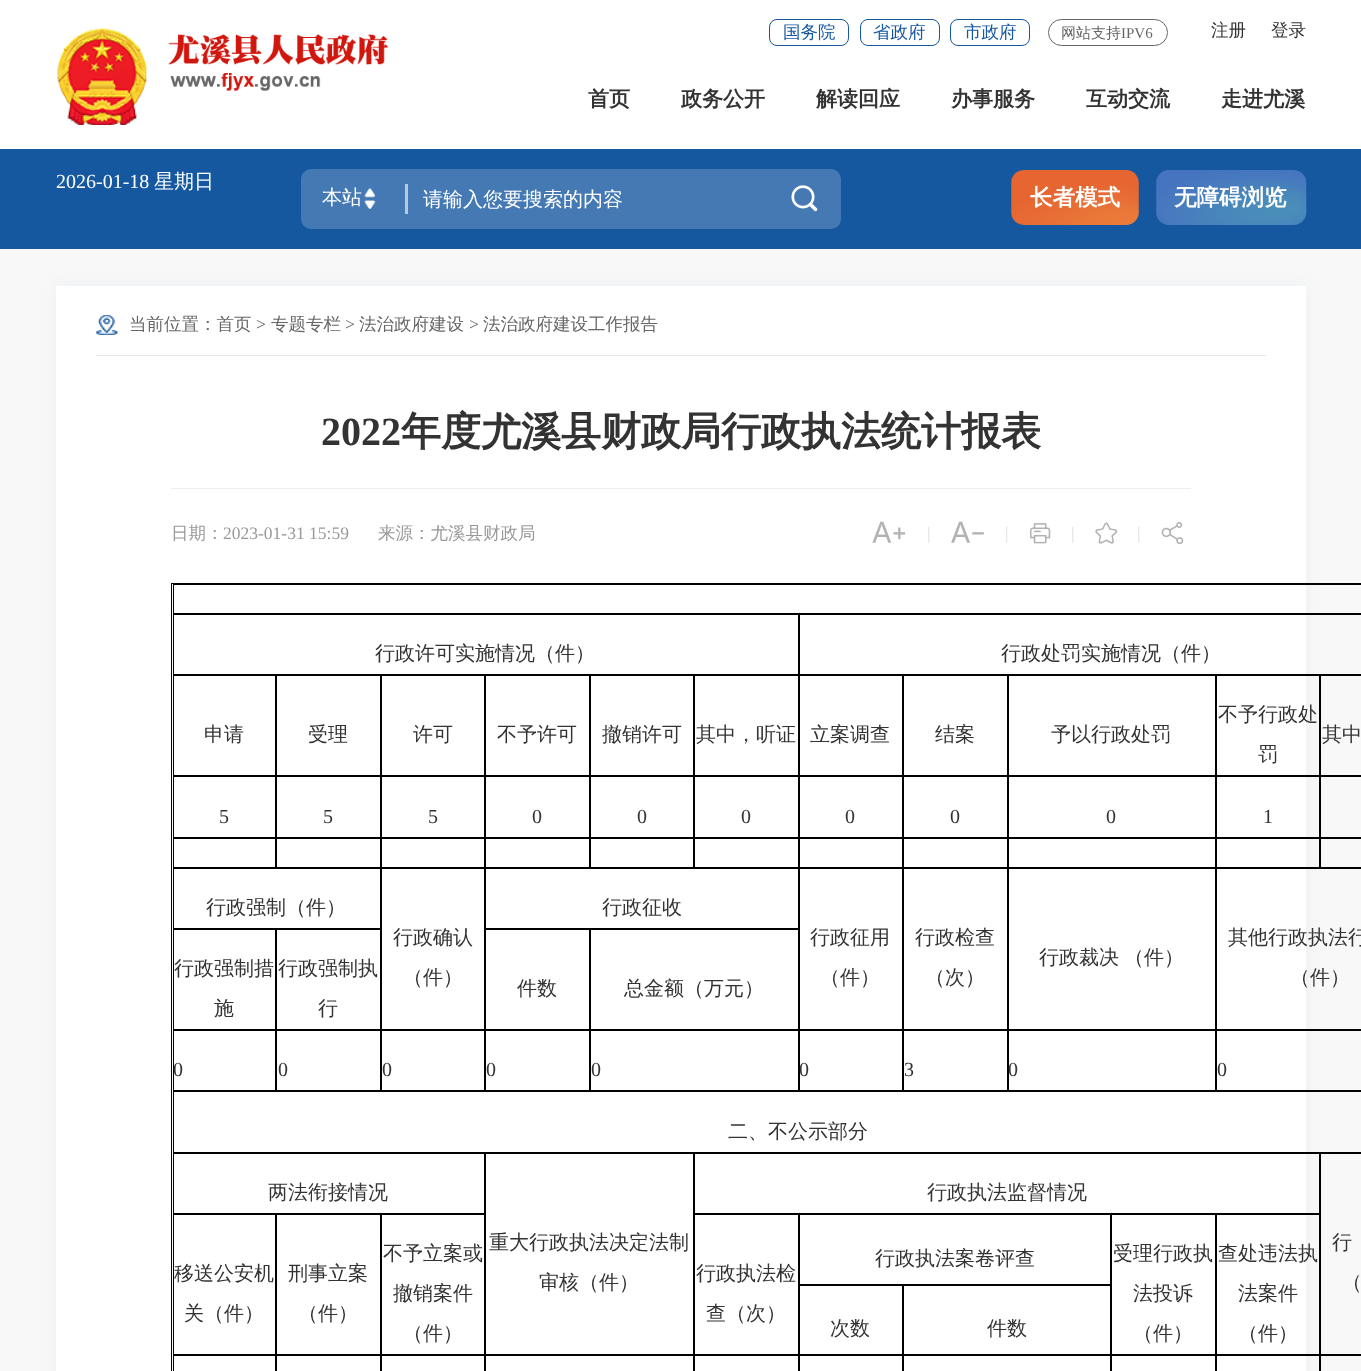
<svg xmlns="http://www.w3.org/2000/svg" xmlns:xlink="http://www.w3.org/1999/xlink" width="1361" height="1371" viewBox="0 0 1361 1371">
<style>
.cls-1{font:500 17.5px WenQuanYi Zen Hei;fill:#1658a0}
.cls-2{font:500 15px WenQuanYi Zen Hei;fill:#666666}
.cls-3{font:15px Liberation Serif;fill:#666666}
.cls-4{font:500 17.5px WenQuanYi Zen Hei;fill:#333333}
.cls-5{font:bold 21px WenQuanYi Zen Hei;fill:#333333}
.cls-6{font:20px Liberation Serif;fill:#ffffff}
.cls-7{font:500 20px WenQuanYi Zen Hei;fill:#ffffff}
.cls-8{font:bold 22.5px WenQuanYi Zen Hei;fill:#ffffff}
.cls-9{font:500 17.5px WenQuanYi Zen Hei;fill:#666666}
.cls-10{font:17.5px Liberation Serif;fill:#666666}
.cls-11{font:bold 40px Liberation Serif;fill:#333333}
.cls-12{font:bold 40px WenQuanYi Zen Hei;fill:#333333}
.cls-13{font:500 17.5px WenQuanYi Zen Hei;fill:#999999}
.cls-14{font:17.5px Liberation Serif;fill:#999999}
.cls-15{font:17.5px Liberation Serif;fill:#e0e0e0}
.cls-16{font:500 20px WenQuanYi Zen Hei;fill:#333333}
.cls-17{font:20px Liberation Serif;fill:#333333}
</style>
<rect width="100%" height="100%" fill="#f8f8f8"/>
<rect fill="#ffffff" x="0" y="0" width="1361" height="149"/>
<image xlink:href="image0.png" x="57" y="28" width="90" height="97"/>
<image xlink:href="image1.png" x="168" y="34" width="220" height="57"/>
<rect fill="none" stroke="#1658a0" x="769.5" y="19.5" width="79" height="26" rx="7.5"/>
<rect fill="none" stroke="#1658a0" x="860.5" y="19.5" width="79" height="26" rx="7.5"/>
<rect fill="none" stroke="#1658a0" x="950.5" y="19.5" width="79" height="26" rx="7.5"/>
<rect fill="none" stroke="#666666" x="1048.5" y="19.5" width="119" height="26" rx="13"/>
<rect fill="#1658a0" x="0" y="149" width="1361" height="100"/>
<rect fill="#4579b3" x="301" y="169" width="540" height="60" rx="10"/>
<image xlink:href="image2.png" x="364" y="188" width="12" height="21"/>
<rect fill="#b5c9e1" x="405" y="184" width="3" height="30"/>
<image xlink:href="image3.png" x="791" y="185" width="27" height="27"/>
<image xlink:href="image4.png" x="1011" y="170" width="128" height="55"/>
<image xlink:href="image5.png" x="1156" y="170" width="151" height="55"/>
<rect fill="#0d3969" fill-opacity="0.05" filter="blur(9.5px)" x="56" y="286" width="1250" height="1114"/>
<rect fill="#ffffff" x="56" y="286" width="1250" height="1085"/>
<rect fill="#e8e8e8" x="96" y="355" width="1170" height="1"/>
<image xlink:href="image6.png" x="96" y="315" width="22" height="20"/>
<rect fill="#efefef" x="171" y="488" width="1020" height="1"/>
<image xlink:href="image7.png" x="872" y="521" width="34" height="22"/>
<image xlink:href="image8.png" x="951" y="521" width="33" height="22"/>
<image xlink:href="image9.png" x="1030" y="523" width="21" height="21"/>
<image xlink:href="image10.png" x="1095" y="522" width="23" height="22"/>
<image xlink:href="image11.png" x="1161" y="522" width="23" height="23"/>
<rect fill="none" stroke="#000000" x="171.5" y="583.5" width="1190" height="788"/>
<rect fill="none" stroke="#000000" x="173.5" y="584.5" width="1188" height="29"/>
<rect fill="none" stroke="#000000" x="173.5" y="614.5" width="625" height="60"/>
<rect fill="none" stroke="#000000" x="799.5" y="614.5" width="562" height="60"/>
<rect fill="none" stroke="#000000" x="173.5" y="675.5" width="102" height="100"/>
<rect fill="none" stroke="#000000" x="276.5" y="675.5" width="104" height="100"/>
<rect fill="none" stroke="#000000" x="381.5" y="675.5" width="103" height="100"/>
<rect fill="none" stroke="#000000" x="485.5" y="675.5" width="104" height="100"/>
<rect fill="none" stroke="#000000" x="590.5" y="675.5" width="103" height="100"/>
<rect fill="none" stroke="#000000" x="694.5" y="675.5" width="104" height="100"/>
<rect fill="none" stroke="#000000" x="799.5" y="675.5" width="103" height="100"/>
<rect fill="none" stroke="#000000" x="903.5" y="675.5" width="104" height="100"/>
<rect fill="none" stroke="#000000" x="1008.5" y="675.5" width="207" height="100"/>
<rect fill="none" stroke="#000000" x="1216.5" y="675.5" width="103" height="100"/>
<rect fill="none" stroke="#000000" x="1320.5" y="675.5" width="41" height="100"/>
<rect fill="none" stroke="#000000" x="173.5" y="776.5" width="102" height="61"/>
<rect fill="none" stroke="#000000" x="276.5" y="776.5" width="104" height="61"/>
<rect fill="none" stroke="#000000" x="381.5" y="776.5" width="103" height="61"/>
<rect fill="none" stroke="#000000" x="485.5" y="776.5" width="104" height="61"/>
<rect fill="none" stroke="#000000" x="590.5" y="776.5" width="103" height="61"/>
<rect fill="none" stroke="#000000" x="694.5" y="776.5" width="104" height="61"/>
<rect fill="none" stroke="#000000" x="799.5" y="776.5" width="103" height="61"/>
<rect fill="none" stroke="#000000" x="903.5" y="776.5" width="104" height="61"/>
<rect fill="none" stroke="#000000" x="1008.5" y="776.5" width="207" height="61"/>
<rect fill="none" stroke="#000000" x="1216.5" y="776.5" width="103" height="61"/>
<rect fill="none" stroke="#000000" x="1320.5" y="776.5" width="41" height="61"/>
<rect fill="none" stroke="#000000" x="173.5" y="838.5" width="102" height="29"/>
<rect fill="none" stroke="#000000" x="276.5" y="838.5" width="104" height="29"/>
<rect fill="none" stroke="#000000" x="381.5" y="838.5" width="103" height="29"/>
<rect fill="none" stroke="#000000" x="485.5" y="838.5" width="104" height="29"/>
<rect fill="none" stroke="#000000" x="590.5" y="838.5" width="103" height="29"/>
<rect fill="none" stroke="#000000" x="694.5" y="838.5" width="104" height="29"/>
<rect fill="none" stroke="#000000" x="799.5" y="838.5" width="103" height="29"/>
<rect fill="none" stroke="#000000" x="903.5" y="838.5" width="104" height="29"/>
<rect fill="none" stroke="#000000" x="1008.5" y="838.5" width="207" height="29"/>
<rect fill="none" stroke="#000000" x="1216.5" y="838.5" width="103" height="29"/>
<rect fill="none" stroke="#000000" x="1320.5" y="838.5" width="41" height="29"/>
<rect fill="none" stroke="#000000" x="173.5" y="868.5" width="207" height="60"/>
<rect fill="none" stroke="#000000" x="485.5" y="868.5" width="313" height="60"/>
<rect fill="none" stroke="#000000" x="381.5" y="868.5" width="103" height="161"/>
<rect fill="none" stroke="#000000" x="799.5" y="868.5" width="103" height="161"/>
<rect fill="none" stroke="#000000" x="903.5" y="868.5" width="104" height="161"/>
<rect fill="none" stroke="#000000" x="1008.5" y="868.5" width="207" height="161"/>
<rect fill="none" stroke="#000000" x="1216.5" y="868.5" width="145" height="161"/>
<rect fill="none" stroke="#000000" x="173.5" y="929.5" width="102" height="100"/>
<rect fill="none" stroke="#000000" x="276.5" y="929.5" width="104" height="100"/>
<rect fill="none" stroke="#000000" x="485.5" y="929.5" width="104" height="100"/>
<rect fill="none" stroke="#000000" x="590.5" y="929.5" width="208" height="100"/>
<rect fill="none" stroke="#000000" x="173.5" y="1030.5" width="102" height="60"/>
<rect fill="none" stroke="#000000" x="276.5" y="1030.5" width="104" height="60"/>
<rect fill="none" stroke="#000000" x="381.5" y="1030.5" width="103" height="60"/>
<rect fill="none" stroke="#000000" x="485.5" y="1030.5" width="104" height="60"/>
<rect fill="none" stroke="#000000" x="590.5" y="1030.5" width="208" height="60"/>
<rect fill="none" stroke="#000000" x="799.5" y="1030.5" width="103" height="60"/>
<rect fill="none" stroke="#000000" x="903.5" y="1030.5" width="104" height="60"/>
<rect fill="none" stroke="#000000" x="1008.5" y="1030.5" width="207" height="60"/>
<rect fill="none" stroke="#000000" x="1216.5" y="1030.5" width="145" height="60"/>
<rect fill="none" stroke="#000000" x="173.5" y="1091.5" width="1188" height="61"/>
<rect fill="none" stroke="#000000" x="173.5" y="1153.5" width="311" height="60"/>
<rect fill="none" stroke="#000000" x="694.5" y="1153.5" width="625" height="60"/>
<rect fill="none" stroke="#000000" x="485.5" y="1153.5" width="208" height="201"/>
<rect fill="none" stroke="#000000" x="1320.5" y="1153.5" width="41" height="201"/>
<rect fill="none" stroke="#000000" x="381.5" y="1214.5" width="103" height="140"/>
<rect fill="none" stroke="#000000" x="799.5" y="1214.5" width="311" height="70"/>
<rect fill="none" stroke="#000000" x="1111.5" y="1214.5" width="104" height="140"/>
<rect fill="none" stroke="#000000" x="1216.5" y="1214.5" width="103" height="140"/>
<rect fill="none" stroke="#000000" x="173.5" y="1214.5" width="102" height="140"/>
<rect fill="none" stroke="#000000" x="276.5" y="1214.5" width="104" height="140"/>
<rect fill="none" stroke="#000000" x="694.5" y="1214.5" width="104" height="140"/>
<rect fill="none" stroke="#000000" x="799.5" y="1285.5" width="103" height="69"/>
<rect fill="none" stroke="#000000" x="903.5" y="1285.5" width="207" height="69"/>
<rect fill="none" stroke="#000000" x="173.5" y="1355.5" width="102" height="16"/>
<rect fill="none" stroke="#000000" x="276.5" y="1355.5" width="104" height="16"/>
<rect fill="none" stroke="#000000" x="381.5" y="1355.5" width="103" height="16"/>
<rect fill="none" stroke="#000000" x="485.5" y="1355.5" width="208" height="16"/>
<rect fill="none" stroke="#000000" x="694.5" y="1355.5" width="104" height="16"/>
<rect fill="none" stroke="#000000" x="799.5" y="1355.5" width="103" height="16"/>
<rect fill="none" stroke="#000000" x="903.5" y="1355.5" width="207" height="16"/>
<rect fill="none" stroke="#000000" x="1111.5" y="1355.5" width="104" height="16"/>
<rect fill="none" stroke="#000000" x="1216.5" y="1355.5" width="103" height="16"/>
<rect fill="none" stroke="#000000" x="1320.5" y="1355.5" width="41" height="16"/>
<text class="cls-1" x="783" y="38">国务院</text>
<text class="cls-1" x="873" y="38">省政府</text>
<text class="cls-1" x="964" y="38">市政府</text>
<text class="cls-2" x="1061" y="38">网站支持</text>
<text class="cls-3" x="1121" y="38">IPV6</text>
<text class="cls-4" x="1211" y="36">注册</text>
<text class="cls-4" x="1271" y="36">登录</text>
<text class="cls-5" x="588" y="106">首页</text>
<text class="cls-5" x="681" y="106">政务公开</text>
<text class="cls-5" x="816" y="106">解读回应</text>
<text class="cls-5" x="951" y="106">办事服务</text>
<text class="cls-5" x="1086" y="106">互动交流</text>
<text class="cls-5" x="1221" y="106">走进尤溪</text>
<text class="cls-6" x="56" y="188">2026-01-18</text>
<text class="cls-7" x="154" y="188">星期日</text>
<text class="cls-7" x="322" y="204">本站</text>
<text class="cls-7" x="423" y="206">请输入您要搜索的内容</text>
<text class="cls-8" x="1030" y="205">长者模式</text>
<text class="cls-8" x="1174" y="205">无障碍浏览</text>
<text class="cls-9" x="129" y="330">当前位置：首页</text>
<text class="cls-10" x="256" y="330">&gt;</text>
<text class="cls-9" x="271" y="330">专题专栏</text>
<text class="cls-10" x="345" y="330">&gt;</text>
<text class="cls-9" x="359" y="330">法治政府建设</text>
<text class="cls-10" x="469" y="330">&gt;</text>
<text class="cls-9" x="483" y="330">法治政府建设工作报告</text>
<text class="cls-11" x="321" y="445">2022</text>
<text class="cls-12" x="401" y="445">年度尤溪县财政局行政执法统计报表</text>
<text class="cls-13" x="171" y="539">日期：</text>
<text class="cls-14" x="223" y="539">2023-01-31 15:59</text>
<text class="cls-13" x="378" y="539">来源：尤溪县财政局</text>
<text class="cls-15" x="927" y="539">|</text>
<text class="cls-15" x="1005" y="539">|</text>
<text class="cls-15" x="1071" y="539">|</text>
<text class="cls-15" x="1137" y="539">|</text>
<text class="cls-16" x="375" y="660">行政许可实施情况（件）</text>
<text class="cls-16" x="1001" y="660">行政处罚实施情况（件）</text>
<text class="cls-16" x="204" y="741">申请</text>
<text class="cls-16" x="308" y="741">受理</text>
<text class="cls-16" x="413" y="741">许可</text>
<text class="cls-16" x="497" y="741">不予许可</text>
<text class="cls-16" x="602" y="741">撤销许可</text>
<text class="cls-16" x="696" y="741">其中，听证</text>
<text class="cls-16" x="810" y="741">立案调查</text>
<text class="cls-16" x="935" y="741">结案</text>
<text class="cls-16" x="1051" y="741">予以行政处罚</text>
<text class="cls-16" x="1218" y="721">不予行政处</text>
<text class="cls-16" x="1258" y="761">罚</text>
<text class="cls-16" x="1322" y="741">其中</text>
<text class="cls-17" x="219" y="823">5</text>
<text class="cls-17" x="323" y="823">5</text>
<text class="cls-17" x="428" y="823">5</text>
<text class="cls-17" x="532" y="823">0</text>
<text class="cls-17" x="637" y="823">0</text>
<text class="cls-17" x="741" y="823">0</text>
<text class="cls-17" x="845" y="823">0</text>
<text class="cls-17" x="950" y="823">0</text>
<text class="cls-17" x="1106" y="823">0</text>
<text class="cls-17" x="1263" y="823">1</text>
<text class="cls-16" x="206" y="914">行政强制（件）</text>
<text class="cls-16" x="602" y="914">行政征收</text>
<text class="cls-16" x="393" y="944">行政确认</text>
<text class="cls-16" x="403" y="984">（件）</text>
<text class="cls-16" x="810" y="944">行政征用</text>
<text class="cls-16" x="820" y="984">（件）</text>
<text class="cls-16" x="915" y="944">行政检查</text>
<text class="cls-16" x="925" y="984">（次）</text>
<text class="cls-16" x="1039" y="964" word-spacing="-1">行政裁决 （件）</text>
<text class="cls-16" x="1228" y="944">其他行政执法行</text>
<text class="cls-16" x="1290" y="984">（件）</text>
<text class="cls-16" x="174" y="975">行政强制措</text>
<text class="cls-16" x="214" y="1015">施</text>
<text class="cls-16" x="278" y="975">行政强制执</text>
<text class="cls-16" x="318" y="1015">行</text>
<text class="cls-16" x="517" y="995">件数</text>
<text class="cls-16" x="624" y="995">总金额（万元）</text>
<text class="cls-17" x="173" y="1076">0</text>
<text class="cls-17" x="278" y="1076">0</text>
<text class="cls-17" x="382" y="1076">0</text>
<text class="cls-17" x="486" y="1076">0</text>
<text class="cls-17" x="591" y="1076">0</text>
<text class="cls-17" x="799" y="1076">0</text>
<text class="cls-17" x="904" y="1076">3</text>
<text class="cls-17" x="1008" y="1076">0</text>
<text class="cls-17" x="1217" y="1076">0</text>
<text class="cls-16" x="728" y="1138">二、不公示部分</text>
<text class="cls-16" x="268" y="1199">两法衔接情况</text>
<text class="cls-16" x="927" y="1199">行政执法监督情况</text>
<text class="cls-16" x="489" y="1249">重大行政执法决定法制</text>
<text class="cls-16" x="539" y="1289">审核（件）</text>
<text class="cls-16" x="1332" y="1249">行</text>
<text class="cls-16" x="1342" y="1289">（</text>
<text class="cls-16" x="383" y="1260">不予立案或</text>
<text class="cls-16" x="393" y="1300">撤销案件</text>
<text class="cls-16" x="403" y="1340">（件）</text>
<text class="cls-16" x="875" y="1265">行政执法案卷评查</text>
<text class="cls-16" x="1113" y="1260">受理行政执</text>
<text class="cls-16" x="1133" y="1300">法投诉</text>
<text class="cls-16" x="1133" y="1340">（件）</text>
<text class="cls-16" x="1218" y="1260">查处违法执</text>
<text class="cls-16" x="1238" y="1300">法案件</text>
<text class="cls-16" x="1238" y="1340">（件）</text>
<text class="cls-16" x="174" y="1280">移送公安机</text>
<text class="cls-16" x="184" y="1320">关（件）</text>
<text class="cls-16" x="288" y="1280">刑事立案</text>
<text class="cls-16" x="298" y="1320">（件）</text>
<text class="cls-16" x="696" y="1280">行政执法检</text>
<text class="cls-16" x="706" y="1320">查（次）</text>
<text class="cls-16" x="830" y="1335">次数</text>
<text class="cls-16" x="987" y="1335">件数</text>
</svg>
